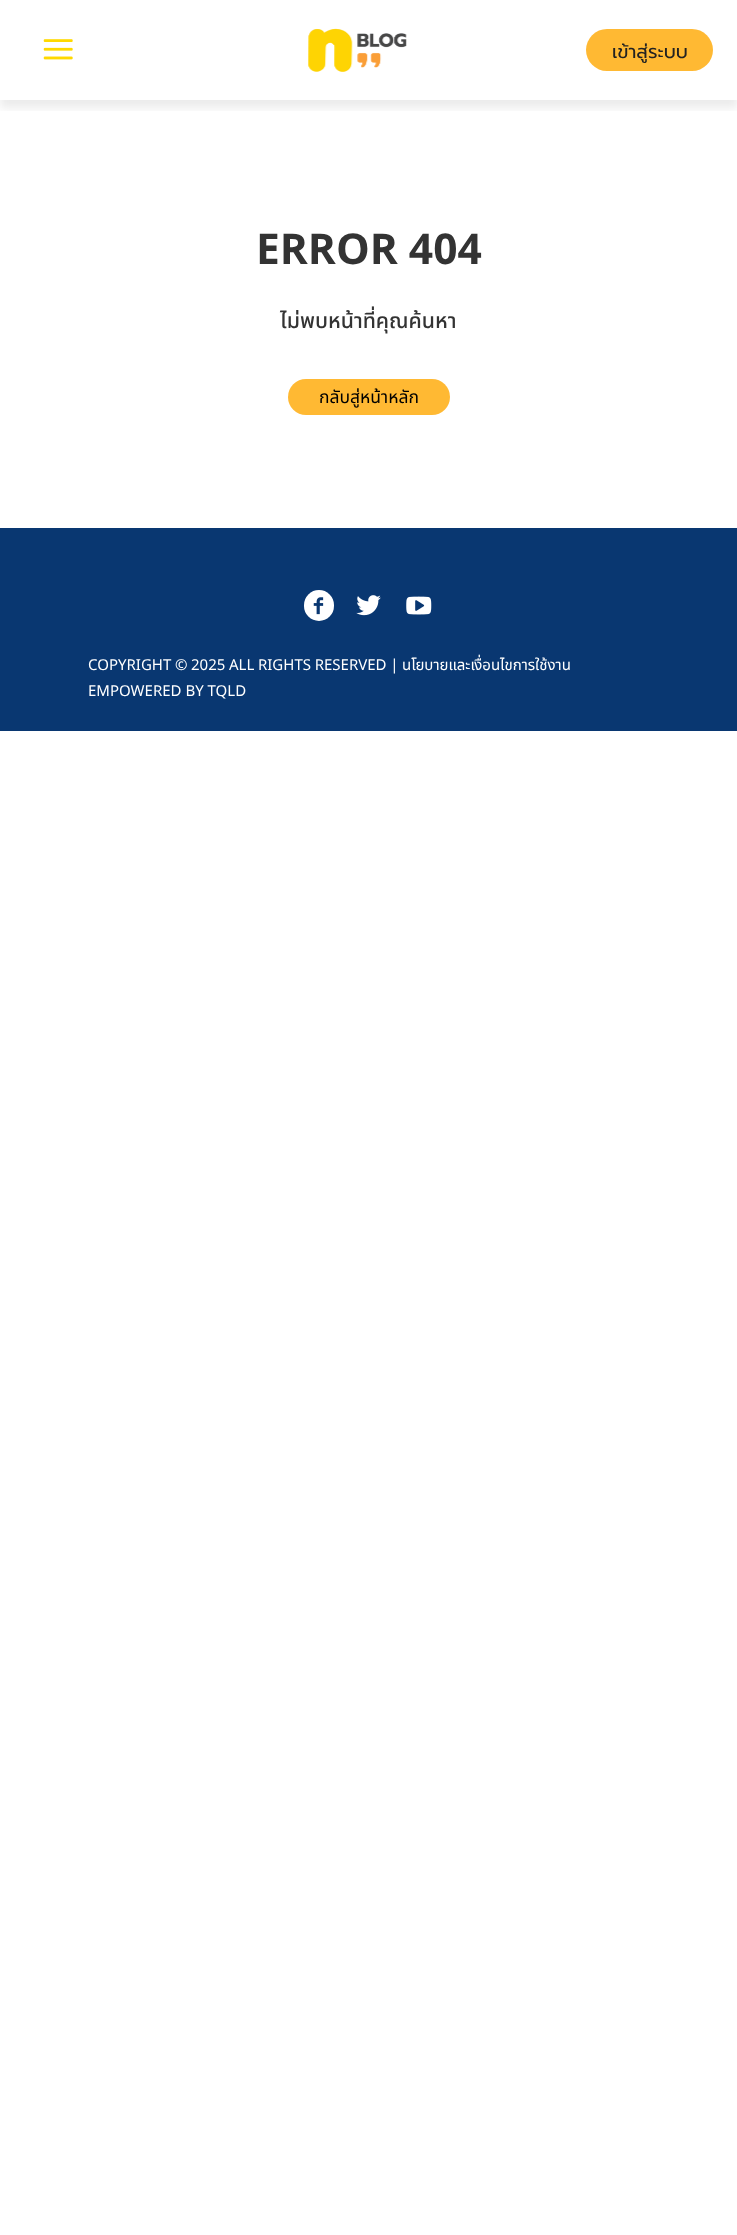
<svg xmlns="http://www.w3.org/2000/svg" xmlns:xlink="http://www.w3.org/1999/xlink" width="737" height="2235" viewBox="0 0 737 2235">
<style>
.cls-1{font:18.75px Prompt;fill:#222222}
.cls-2{font:bold 42.5px Noto Sans Thai;fill:#333333}
.cls-3{font:500 21.25px Noto Sans Thai;fill:#333333}
.cls-4{font:17.5px Noto Sans Thai;fill:#000000}
.cls-5{font:15px Noto Sans Thai;fill:#ffffff}
</style>
<defs>
<clipPath id="clip1"><rect x="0" y="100" width="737" height="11"/></clipPath>
</defs>
<rect width="100%" height="100%" fill="#ffffff"/>
<image xlink:href="image0.png" x="43" y="39" width="30" height="21"/>
<image xlink:href="image1.png" x="308" y="28" width="99" height="44"/>
<rect fill="#ffb933" x="586" y="29" width="127" height="42" rx="21"/>
<g clip-path="url(#clip1)">
<rect fill="#000000" fill-opacity="0.08" filter="blur(5px)" x="0" y="8" width="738" height="100"/>
</g>
<rect fill="#ffb933" x="288" y="379" width="162" height="36" rx="18"/>
<rect fill="#093771" x="0" y="528" width="737" height="203"/>
<rect fill="#ffffff" x="304" y="590" width="30" height="31" rx="15"/>
<image xlink:href="image2.png" x="313" y="597" width="11" height="18"/>
<image xlink:href="image3.png" x="356" y="595" width="25" height="21"/>
<image xlink:href="image4.png" x="406" y="596" width="26" height="19"/>
<text class="cls-1" x="612" y="58">เข้าสู่ระบบ</text>
<text class="cls-2" x="256" y="264">ERROR 404</text>
<text class="cls-3" x="280" y="328">ไม่พบหน้าที่คุณค้นหา</text>
<text class="cls-4" x="319" y="403">กลับสู่หน้าหลัก</text>
<text class="cls-5"><tspan x="88" y="670" word-spacing="-0.25">COPYRIGHT © 2025 ALL RIGHTS RESERVED | นโยบายและเงื่อนไขการใช้งาน</tspan><tspan x="88" y="696">EMPOWERED BY TQLD</tspan></text>
</svg>
